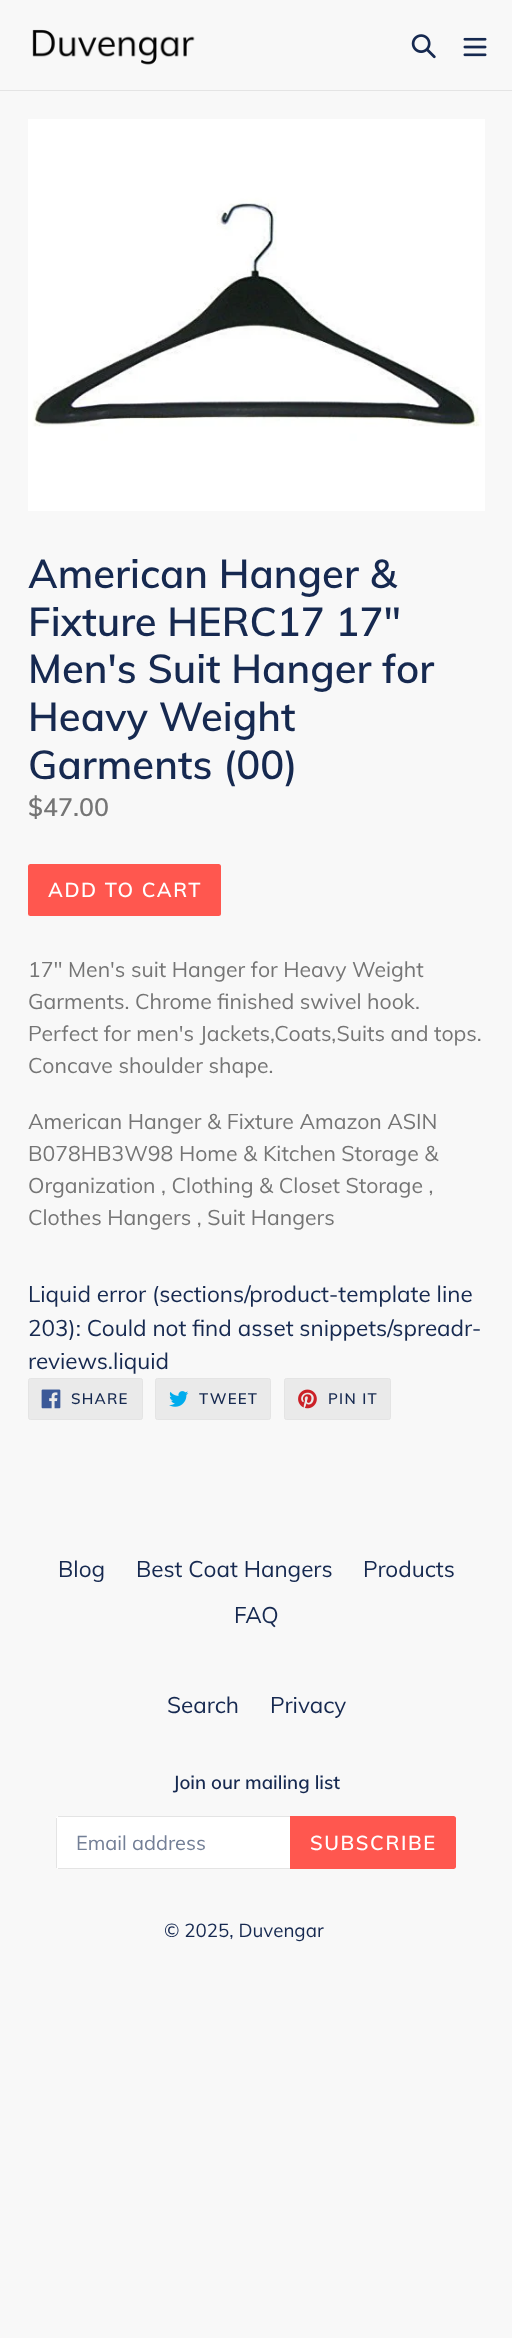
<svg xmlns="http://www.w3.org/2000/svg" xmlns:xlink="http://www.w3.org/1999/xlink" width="512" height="2338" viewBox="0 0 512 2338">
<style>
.cls-1{font:600 40px Muli;fill:#162950}
.cls-2{font:600 25px Muli;fill:#757575}
.cls-3{font:600 20px Muli;letter-spacing:1.6px;fill:#ffffff}
.cls-4{font:21.25px Muli;fill:#757575}
.cls-5{font:22.5px Muli;fill:#162950}
.cls-6{font:600 15px Muli;letter-spacing:1.25px;fill:#162950}
.cls-7{font:600 18.75px Muli;fill:#162950}
.cls-8{font:20px Muli;fill:#737f96}
.cls-9{font:18.75px Muli;fill:#162950}
</style>
<rect width="100%" height="100%" fill="#f8f8f8"/>
<rect fill="#e4e4e4" x="0" y="90" width="512" height="1"/>
<image xlink:href="image0.png" x="32" y="29" width="163" height="36"/>
<image xlink:href="image1.png" x="411" y="34" width="25" height="25"/>
<image xlink:href="image2.png" x="463" y="37" width="24" height="20"/>
<image xlink:href="image3.png" x="28" y="119" width="457" height="392"/>
<rect fill="#ff574f" x="28" y="864" width="193" height="52" rx="2.5"/>
<rect fill="#eaeaea" stroke="#e4e4e4" x="28.5" y="1378.5" width="114" height="41" rx="2"/>
<image xlink:href="image4.png" x="41" y="1389" width="20" height="20"/>
<rect fill="#eaeaea" stroke="#e4e4e4" x="155.5" y="1378.5" width="115" height="41" rx="2"/>
<image xlink:href="image5.png" x="169" y="1391" width="20" height="16"/>
<rect fill="#eaeaea" stroke="#e4e4e4" x="284.5" y="1378.5" width="106" height="41" rx="2"/>
<image xlink:href="image6.png" x="298" y="1389" width="19" height="20"/>
<path fill="#ffffff" d="M58.5 1816H290V1869H58.5C57 1869 56 1868 56 1866.5V1818.5C56 1817 57 1816 58.5 1816Z"/>
<rect fill="#e4e4e4" x="58" y="1816" width="232" height="1"/>
<rect fill="#e4e4e4" x="58" y="1868" width="232" height="1"/>
<rect fill="#e4e4e4" x="56" y="1818" width="1" height="50"/>
<path fill="#ff574f" d="M290 1816H453.5C455 1816 456 1817 456 1818.5V1866.5C456 1868 455 1869 453.5 1869H290Z"/>
<text class="cls-1"><tspan x="28" y="588">American Hanger &amp;</tspan><tspan x="28" y="636">Fixture HERC17 17"</tspan><tspan x="28" y="683">Men's Suit Hanger for</tspan><tspan x="28" y="731">Heavy Weight</tspan><tspan x="28" y="779">Garments (00)</tspan></text>
<text class="cls-2" x="28" y="816">$47.00</text>
<text class="cls-3" x="48" y="897">ADD TO CART</text>
<text class="cls-4"><tspan x="28" y="977">17" Men's suit Hanger for Heavy Weight</tspan><tspan x="28" y="1009">Garments. Chrome finished swivel hook.</tspan><tspan x="28" y="1041">Perfect for men's Jackets,Coats,Suits and tops.</tspan><tspan x="28" y="1073">Concave shoulder shape.</tspan></text>
<text class="cls-4"><tspan x="28" y="1129">American Hanger &amp; Fixture Amazon ASIN</tspan><tspan x="28" y="1161">B078HB3W98 Home &amp; Kitchen Storage &amp;</tspan><tspan x="28" y="1193">Organization , Clothing &amp; Closet Storage ,</tspan><tspan x="28" y="1225">Clothes Hangers , Suit Hangers</tspan></text>
<text class="cls-5"><tspan x="28" y="1302">Liquid error (sections/product-template line</tspan><tspan x="28" y="1336">203): Could not find asset snippets/spreadr-</tspan><tspan x="28" y="1369">reviews.liquid</tspan></text>
<text class="cls-6" x="71" y="1404">SHARE</text>
<text class="cls-6" x="199" y="1404">TWEET</text>
<text class="cls-6" x="328" y="1404">PIN IT</text>
<text class="cls-5" x="58" y="1577">Blog</text>
<text class="cls-5" x="136" y="1577">Best Coat Hangers</text>
<text class="cls-5" x="363" y="1577">Products</text>
<text class="cls-5" x="234" y="1623">FAQ</text>
<text class="cls-5" x="167" y="1713">Search</text>
<text class="cls-5" x="270" y="1713">Privacy</text>
<text class="cls-7" x="173" y="1789">Join our mailing list</text>
<text class="cls-8" x="76" y="1850">Email address</text>
<text class="cls-3" x="310" y="1850">SUBSCRIBE</text>
<text class="cls-9" x="164" y="1937">© 2025, Duvengar</text>
</svg>
